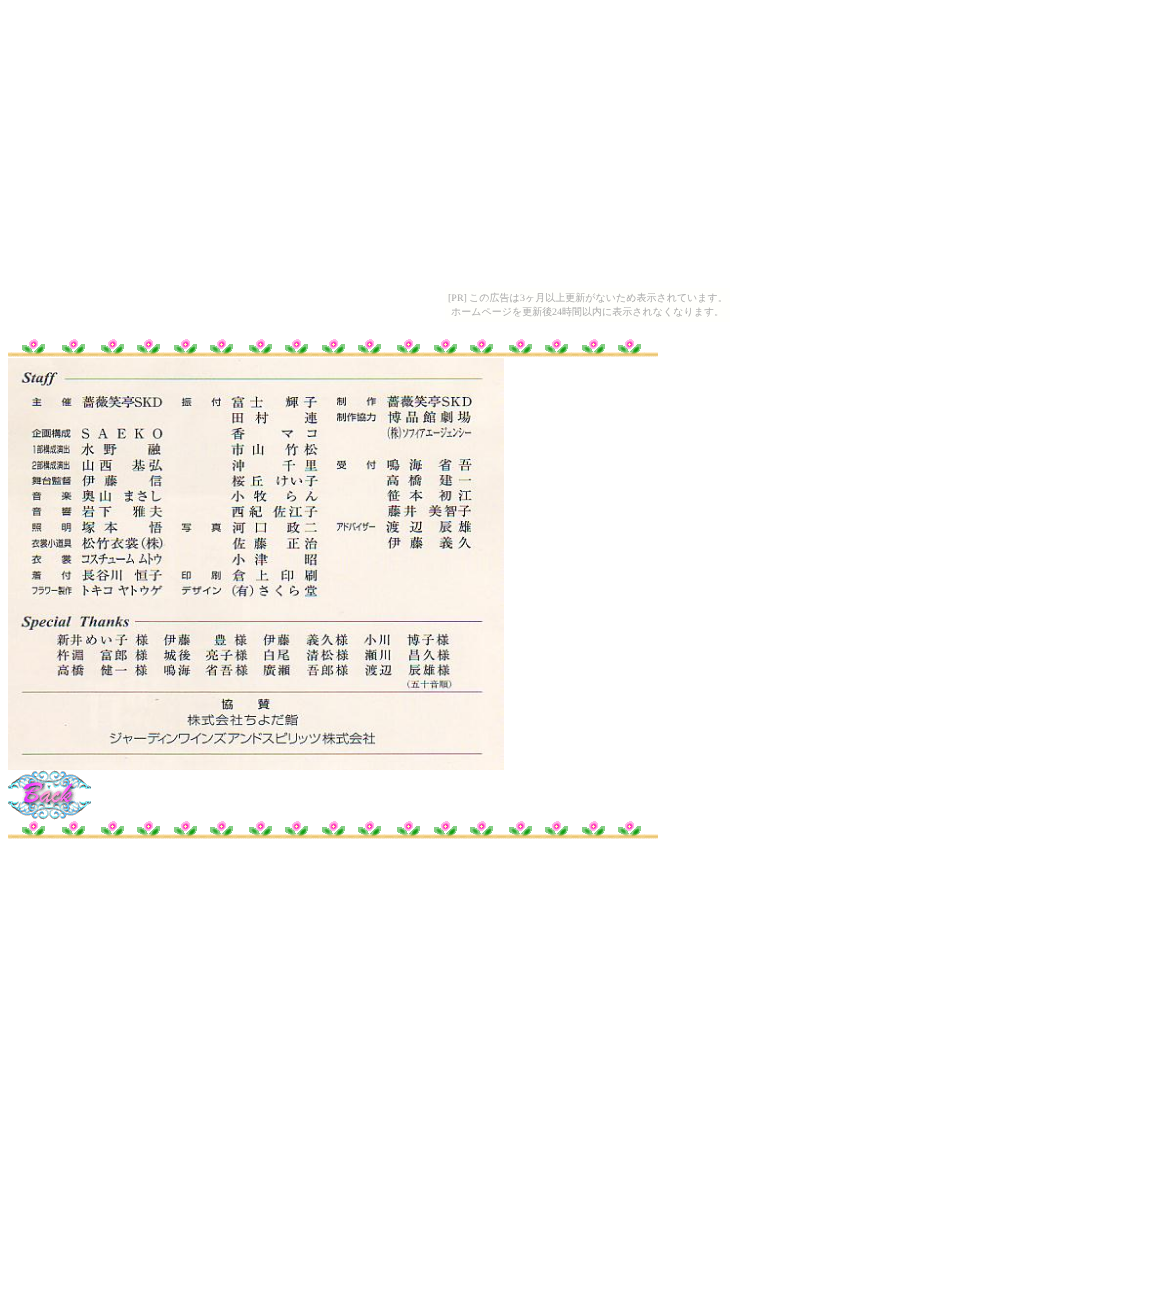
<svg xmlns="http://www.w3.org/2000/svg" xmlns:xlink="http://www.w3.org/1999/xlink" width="1175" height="1295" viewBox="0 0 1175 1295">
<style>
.cls-1{font:10px Liberation Serif;fill:#aaaaaa}
.cls-2{font:500 10px WenQuanYi Zen Hei;fill:#aaaaaa}
</style>
<rect width="100%" height="100%" fill="#ffffff"/>
<rect fill="#fffffc" x="445" y="288" width="285" height="34"/>
<image xlink:href="image0.png" x="8" y="339" width="650" height="18"/>
<image xlink:href="image1.png" x="8" y="358" width="496" height="412"/>
<image xlink:href="image2.png" x="8" y="770" width="83" height="50"/>
<image xlink:href="image0.png" x="8" y="821" width="650" height="18"/>
<text class="cls-1" x="448" y="301">[PR]</text>
<text class="cls-2" x="469" y="301">この広告は</text>
<text class="cls-1" x="520" y="301">3</text>
<text class="cls-2" x="525" y="301">ヶ月以上更新がないため表示されています。</text>
<text class="cls-2" x="451" y="315">ホームページを更新後</text>
<text class="cls-1" x="552" y="315">24</text>
<text class="cls-2" x="562" y="315">時間以内に表示されなくなります。</text>
</svg>
